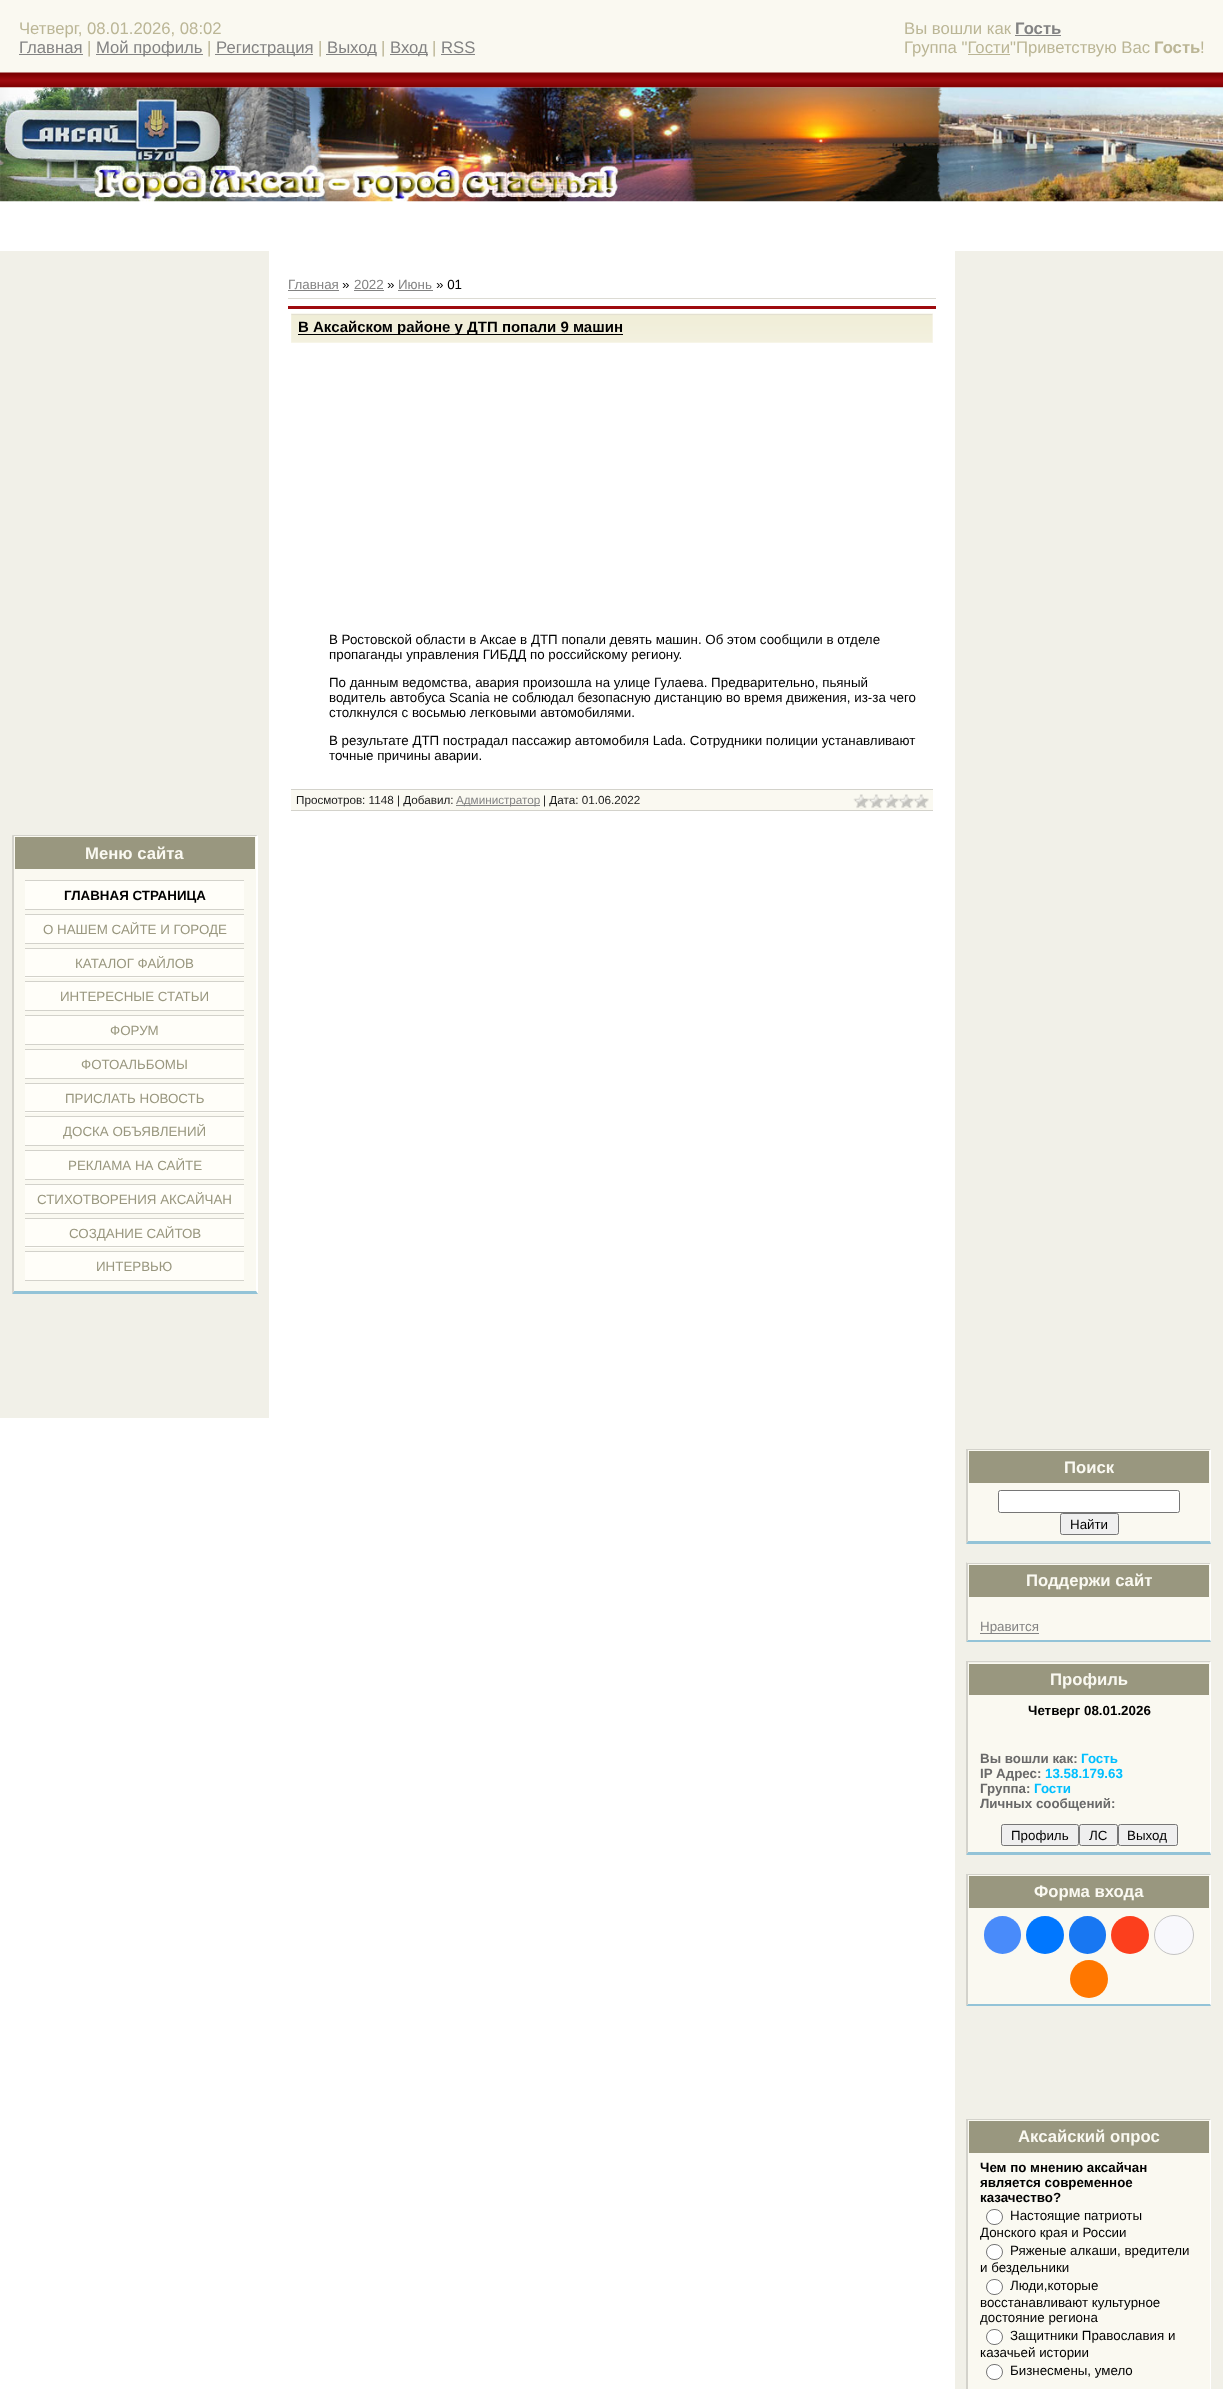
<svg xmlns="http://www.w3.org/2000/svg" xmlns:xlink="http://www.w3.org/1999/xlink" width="1223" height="2389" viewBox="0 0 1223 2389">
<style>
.cls-1{font:16.7px Liberation Sans;fill:#bbb696}
.cls-2{font:16.7px Liberation Sans;fill:#838383}
.cls-3{font:bold 16.7px Liberation Sans;fill:#838383}
.cls-4{font:bold 16.7px Liberation Sans;fill:#bbb696}
.cls-5{font:13.35px Liberation Sans;fill:#838383}
.cls-6{font:13.35px Liberation Sans;fill:#000000}
.cls-7{font:bold 15px Liberation Sans;fill:#000000}
.cls-8{font:11.7px Liberation Sans;fill:#1a1a1a}
.cls-9{font:11.7px Liberation Sans;fill:#838383}
.cls-10{font:bold 16.7px Liberation Sans;fill:#faf9f1}
.cls-11{font:bold 13.35px Liberation Sans;fill:#000000}
.cls-12{font:13.35px Liberation Sans;fill:#99977f}
.cls-13{font:bold 13.35px Liberation Sans;fill:#696969}
.cls-14{font:bold 13.35px Liberation Sans;fill:#00bfff}
</style>
<rect width="100%" height="100%" fill="#ffffff"/>
<rect fill="#faf9f1" x="0" y="0" width="1223" height="88"/>
<image xlink:href="image0.png" x="0" y="72" width="1223" height="16"/>
<rect fill="#838383" x="19" y="54" width="64" height="1"/>
<rect fill="#838383" x="96" y="54" width="107" height="1"/>
<rect fill="#838383" x="215" y="54" width="98" height="1"/>
<rect fill="#838383" x="326" y="54" width="50" height="1"/>
<rect fill="#838383" x="390" y="54" width="38" height="1"/>
<rect fill="#838383" x="441" y="54" width="34" height="1"/>
<rect fill="#838383" x="1015" y="35" width="46" height="1"/>
<rect fill="#bbb696" x="968" y="54" width="42" height="1"/>
<image xlink:href="image1.png" x="0" y="87" width="1223" height="115"/>
<rect fill="#838383" x="288" y="290" width="51" height="1"/>
<rect fill="#838383" x="354" y="290" width="30" height="1"/>
<rect fill="#838383" x="398" y="290" width="35" height="1"/>
<rect fill="#dcdbd4" x="288" y="298" width="648" height="1"/>
<rect fill="#9e0b0f" x="288" y="306" width="648" height="3"/>
<rect fill="#faf9f1" x="291" y="313" width="642" height="30"/>
<image xlink:href="image2.png" x="291" y="314" width="642" height="29"/>
<rect fill="#000000" x="298" y="334" width="325" height="1"/>
<rect fill="#faf9f1" x="291" y="790" width="642" height="20"/>
<rect fill="#d3d2cb" x="291" y="789" width="642" height="1"/>
<rect fill="#d3d2cb" x="291" y="810" width="642" height="1"/>
<rect fill="#838383" x="456" y="805" width="84" height="1"/>
<image xlink:href="image3.png" x="853" y="794" width="76" height="15"/>
<rect fill="#f1f0e8" x="0" y="251" width="269" height="1167"/>
<rect fill="#faf9f1" x="14" y="870" width="242" height="421"/>
<rect fill="#d3d2cb" x="13" y="835" width="245" height="1"/>
<path fill="#ffffff" d="M258 835V1294L256 1291V836Z"/>
<path fill="#93c3d7" d="M258 1294H12L14 1291H256Z"/>
<path fill="#d3d2cb" d="M12 1294V835L14 836V1291Z"/>
<rect fill="#99977f" stroke="#faf9f1" x="14.5" y="836.5" width="241" height="33"/>
<rect fill="#fffef9" x="25" y="881" width="219" height="28"/>
<rect fill="#d3d2cb" x="25" y="880" width="219" height="1"/>
<rect fill="#d3d2cb" x="25" y="909" width="219" height="1"/>
<rect fill="#fffef9" x="25" y="915" width="219" height="28"/>
<rect fill="#d3d2cb" x="25" y="914" width="219" height="1"/>
<rect fill="#d3d2cb" x="25" y="943" width="219" height="1"/>
<rect fill="#fffef9" x="25" y="949" width="219" height="29"/>
<rect fill="#d3d2cb" x="25" y="948" width="219" height="1"/>
<rect fill="#d3d2cb" x="25" y="976" width="219" height="1"/>
<rect fill="#fffef9" x="25" y="982" width="219" height="28"/>
<rect fill="#d3d2cb" x="25" y="981" width="219" height="1"/>
<rect fill="#d3d2cb" x="25" y="1010" width="219" height="1"/>
<rect fill="#fffef9" x="25" y="1016" width="219" height="28"/>
<rect fill="#d3d2cb" x="25" y="1015" width="219" height="1"/>
<rect fill="#d3d2cb" x="25" y="1044" width="219" height="1"/>
<rect fill="#fffef9" x="25" y="1050" width="219" height="28"/>
<rect fill="#d3d2cb" x="25" y="1049" width="219" height="1"/>
<rect fill="#d3d2cb" x="25" y="1078" width="219" height="1"/>
<rect fill="#fffef9" x="25" y="1084" width="219" height="29"/>
<rect fill="#d3d2cb" x="25" y="1083" width="219" height="1"/>
<rect fill="#d3d2cb" x="25" y="1111" width="219" height="1"/>
<rect fill="#fffef9" x="25" y="1117" width="219" height="28"/>
<rect fill="#d3d2cb" x="25" y="1116" width="219" height="1"/>
<rect fill="#d3d2cb" x="25" y="1145" width="219" height="1"/>
<rect fill="#fffef9" x="25" y="1151" width="219" height="28"/>
<rect fill="#d3d2cb" x="25" y="1150" width="219" height="1"/>
<rect fill="#d3d2cb" x="25" y="1179" width="219" height="1"/>
<rect fill="#fffef9" x="25" y="1185" width="219" height="28"/>
<rect fill="#d3d2cb" x="25" y="1184" width="219" height="1"/>
<rect fill="#d3d2cb" x="25" y="1213" width="219" height="1"/>
<rect fill="#fffef9" x="25" y="1219" width="219" height="29"/>
<rect fill="#d3d2cb" x="25" y="1218" width="219" height="1"/>
<rect fill="#d3d2cb" x="25" y="1246" width="219" height="1"/>
<rect fill="#fffef9" x="25" y="1252" width="219" height="28"/>
<rect fill="#d3d2cb" x="25" y="1251" width="219" height="1"/>
<rect fill="#d3d2cb" x="25" y="1280" width="219" height="1"/>
<rect fill="#f1f0e8" x="955" y="251" width="268" height="2138"/>
<rect fill="#faf9f1" x="968" y="1484" width="242" height="57"/>
<rect fill="#d3d2cb" x="966" y="1449" width="245" height="1"/>
<path fill="#ffffff" d="M1211 1449V1544L1210 1541V1450Z"/>
<path fill="#93c3d7" d="M1211 1544H966L968 1541H1210Z"/>
<path fill="#d3d2cb" d="M966 1544V1449L968 1450V1541Z"/>
<rect fill="#99977f" stroke="#faf9f1" x="968.5" y="1450.5" width="241" height="33"/>
<rect fill="#ffffff" stroke="#767676" x="998.5" y="1490.5" width="181" height="22" rx="2"/>
<rect fill="#efefef" stroke="#767676" x="1060.5" y="1513.5" width="58" height="21" rx="2"/>
<rect fill="#faf9f1" x="968" y="1598" width="242" height="42"/>
<rect fill="#d3d2cb" x="966" y="1563" width="245" height="1"/>
<path fill="#ffffff" d="M1211 1562V1642L1210 1640V1564Z"/>
<path fill="#93c3d7" d="M1211 1642H966L968 1640H1210Z"/>
<path fill="#d3d2cb" d="M966 1642V1562L968 1564V1640Z"/>
<rect fill="#99977f" stroke="#faf9f1" x="968.5" y="1564.5" width="241" height="33"/>
<rect fill="#838383" x="980" y="1633" width="59" height="1"/>
<rect fill="#faf9f1" x="968" y="1696" width="242" height="156"/>
<rect fill="#d3d2cb" x="966" y="1661" width="245" height="1"/>
<path fill="#ffffff" d="M1211 1661V1855L1210 1852V1662Z"/>
<path fill="#93c3d7" d="M1211 1855H966L968 1852H1210Z"/>
<path fill="#d3d2cb" d="M966 1855V1661L968 1662V1852Z"/>
<rect fill="#99977f" stroke="#faf9f1" x="968.5" y="1663.5" width="241" height="32"/>
<rect fill="#efefef" stroke="#767676" x="1001.5" y="1824.5" width="77" height="21" rx="2"/>
<rect fill="#efefef" stroke="#767676" x="1079.5" y="1824.5" width="38" height="21" rx="2"/>
<rect fill="#efefef" stroke="#767676" x="1118.5" y="1824.5" width="59" height="21" rx="2"/>
<rect fill="#faf9f1" x="968" y="1909" width="242" height="95"/>
<rect fill="#d3d2cb" x="966" y="1874" width="245" height="1"/>
<path fill="#ffffff" d="M1211 1874V2006L1210 2004V1875Z"/>
<path fill="#93c3d7" d="M1211 2006H966L968 2004H1210Z"/>
<path fill="#d3d2cb" d="M966 2006V1874L968 1875V2004Z"/>
<rect fill="#99977f" stroke="#faf9f1" x="968.5" y="1875.5" width="241" height="33"/>
<rect fill="#498bfa" x="984" y="1916" width="37" height="38" rx="18.5"/>
<circle fill="#0077ff" cx="1045" cy="1935" r="19"/>
<rect fill="#1877f2" x="1069" y="1916" width="37" height="38" rx="18.5"/>
<circle fill="#fc3f1d" cx="1130" cy="1935" r="19"/>
<circle fill="#f8f8fc" stroke="#c4c4c4" cx="1174" cy="1935" r="19.5"/>
<circle fill="#ff7700" cx="1089" cy="1979" r="19"/>
<rect fill="#faf9f1" x="968" y="2154" width="242" height="235"/>
<rect fill="#d3d2cb" x="966" y="2119" width="245" height="1"/>
<path fill="#ffffff" d="M1211 2119V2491L1210 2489V2120Z"/>
<path fill="#d3d2cb" d="M966 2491V2119L968 2120V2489Z"/>
<rect fill="#99977f" stroke="#faf9f1" x="968.5" y="2120.5" width="241" height="33"/>
<rect fill="#ffffff" stroke="#767676" x="986.5" y="2209.5" width="16" height="15" rx="7.5"/>
<rect fill="#ffffff" stroke="#767676" x="986.5" y="2244.5" width="16" height="15" rx="7.5"/>
<rect fill="#ffffff" stroke="#767676" x="986.5" y="2279.5" width="16" height="15" rx="7.5"/>
<rect fill="#ffffff" stroke="#767676" x="986.5" y="2329.5" width="16" height="15" rx="7.5"/>
<rect fill="#ffffff" stroke="#767676" x="986.5" y="2364.5" width="16" height="15" rx="7.5"/>
<text class="cls-1" x="19" y="34">Четверг, 08.01.2026, 08:02</text>
<text class="cls-2" x="19" y="53">Главная</text>
<text class="cls-1" x="87" y="53">|</text>
<text class="cls-2" x="96" y="53">Мой профиль</text>
<text class="cls-1" x="207" y="53">|</text>
<text class="cls-2" x="216" y="53">Регистрация</text>
<text class="cls-1" x="318" y="53">|</text>
<text class="cls-2" x="327" y="53">Выход</text>
<text class="cls-1" x="381" y="53">|</text>
<text class="cls-2" x="390" y="53">Вход</text>
<text class="cls-1" x="432" y="53">|</text>
<text class="cls-2" x="441" y="53">RSS</text>
<text class="cls-1" x="904" y="34">Вы вошли как</text>
<text class="cls-3" x="1015" y="34">Гость</text>
<text class="cls-1" x="904" y="53">Группа "Гости"Приветствую Вас</text>
<text class="cls-4" x="1154" y="53">Гость</text>
<text class="cls-1" x="1200" y="53">!</text>
<text class="cls-5" x="288" y="289">Главная</text>
<text class="cls-6" x="342" y="289">»</text>
<text class="cls-5" x="354" y="289">2022</text>
<text class="cls-6" x="387" y="289">»</text>
<text class="cls-5" x="398" y="289">Июнь</text>
<text class="cls-6" x="436" y="289">» 01</text>
<text class="cls-7" x="298" y="332">В Аксайском районе у ДТП попали 9 машин</text>
<text class="cls-6"><tspan x="329" y="644">В Ростовской области в Аксае в ДТП попали девять машин. Об этом сообщили в отделе</tspan><tspan x="329" y="659">пропаганды управления ГИБДД по российскому региону.</tspan></text>
<text class="cls-6"><tspan x="329" y="687">По данным ведомства, авария произошла на улице Гулаева. Предварительно, пьяный</tspan><tspan x="329" y="702">водитель автобуса Scania не соблюдал безопасную дистанцию во время движения, из-за чего</tspan><tspan x="329" y="717">столкнулся с восьмью легковыми автомобилями.</tspan></text>
<text class="cls-6"><tspan x="329" y="745">В результате ДТП пострадал пассажир автомобиля Lada. Сотрудники полиции устанавливают</tspan><tspan x="329" y="760">точные причины аварии.</tspan></text>
<text class="cls-8" x="296" y="804">Просмотров: 1148 | Добавил:</text>
<text class="cls-9" x="456" y="804">Администратор</text>
<text class="cls-8" x="543" y="804">| Дата: 01.06.2022</text>
<text class="cls-10" x="85" y="859">Меню сайта</text>
<text class="cls-11" x="64" y="900">ГЛАВНАЯ СТРАНИЦА</text>
<text class="cls-12" x="43" y="934">О НАШЕМ САЙТЕ И ГОРОДЕ</text>
<text class="cls-12" x="75" y="968">КАТАЛОГ ФАЙЛОВ</text>
<text class="cls-12" x="60" y="1001">ИНТЕРЕСНЫЕ СТАТЬИ</text>
<text class="cls-12" x="110" y="1035">ФОРУМ</text>
<text class="cls-12" x="81" y="1069">ФОТОАЛЬБОМЫ</text>
<text class="cls-12" x="65" y="1103">ПРИСЛАТЬ НОВОСТЬ</text>
<text class="cls-12" x="63" y="1136">ДОСКА ОБЪЯВЛЕНИЙ</text>
<text class="cls-12" x="68" y="1170">РЕКЛАМА НА САЙТЕ</text>
<text class="cls-12" x="37" y="1204">СТИХОТВОРЕНИЯ АКСАЙЧАН</text>
<text class="cls-12" x="69" y="1238">СОЗДАНИЕ САЙТОВ</text>
<text class="cls-12" x="96" y="1271">ИНТЕРВЬЮ</text>
<text class="cls-10" x="1064" y="1473">Поиск</text>
<text class="cls-6" x="1070" y="1529">Найти</text>
<text class="cls-10" x="1026" y="1586">Поддержи сайт</text>
<text class="cls-5" x="980" y="1631">Нравится</text>
<text class="cls-10" x="1050" y="1685">Профиль</text>
<text class="cls-11" x="1028" y="1715">Четверг 08.01.2026</text>
<text class="cls-13" x="980" y="1763">Вы вошли как:</text>
<text class="cls-14" x="1081" y="1763">Гость</text>
<text class="cls-13" x="980" y="1778">IP Адрес:</text>
<text class="cls-14" x="1045" y="1778">13.58.179.63</text>
<text class="cls-13" x="980" y="1793">Группа:</text>
<text class="cls-14" x="1034" y="1793">Гости</text>
<text class="cls-13" x="980" y="1808">Личных сообщений:</text>
<text class="cls-6" x="1011" y="1840">Профиль</text>
<text class="cls-6" x="1089" y="1840">ЛС</text>
<text class="cls-6" x="1127" y="1840">Выход</text>
<text class="cls-10" x="1034" y="1897">Форма входа</text>
<text class="cls-10" x="1018" y="2142">Аксайский опрос</text>
<text class="cls-11"><tspan x="980" y="2172">Чем по мнению аксайчан</tspan><tspan x="980" y="2187">является современное</tspan><tspan x="980" y="2202">казачество?</tspan></text>
<text class="cls-6" x="1010" y="2220">Настоящие патриоты</text>
<text class="cls-6" x="980" y="2237">Донского края и России</text>
<text class="cls-6" x="1010" y="2255">Ряженые алкаши, вредители</text>
<text class="cls-6" x="980" y="2272">и бездельники</text>
<text class="cls-6" x="1010" y="2290">Люди,которые</text>
<text class="cls-6"><tspan x="980" y="2307">восстанавливают культурное</tspan><tspan x="980" y="2322">достояние региона</tspan></text>
<text class="cls-6" x="1010" y="2340">Защитники Православия и</text>
<text class="cls-6" x="980" y="2357">казачьей истории</text>
<text class="cls-6" x="1010" y="2375">Бизнесмены, умело</text>
</svg>
